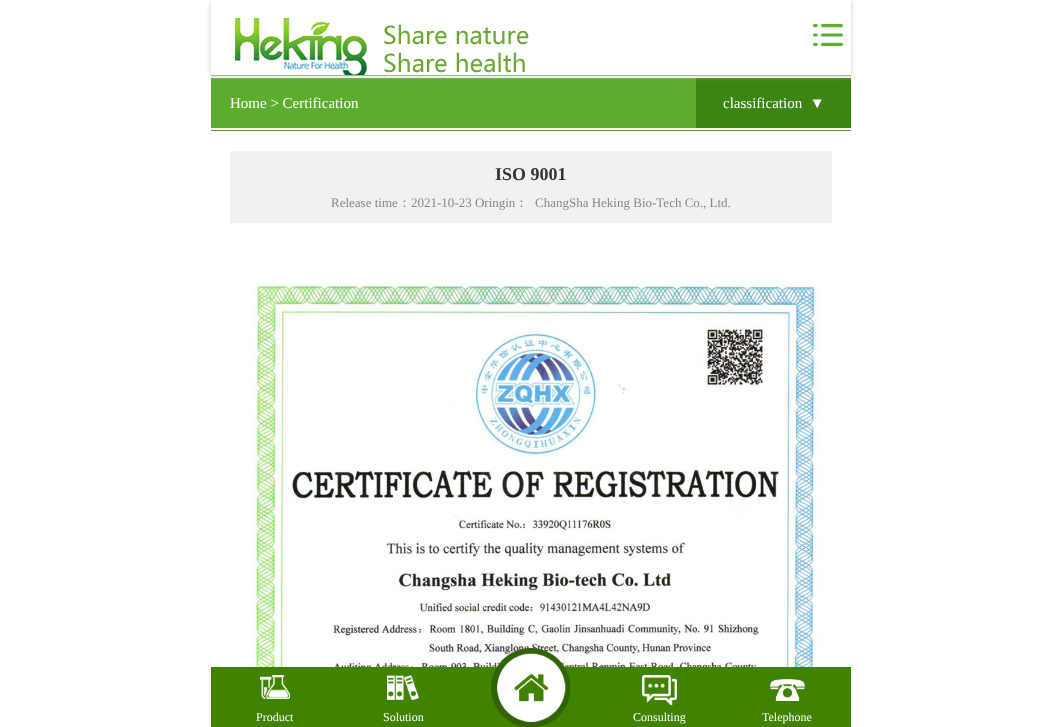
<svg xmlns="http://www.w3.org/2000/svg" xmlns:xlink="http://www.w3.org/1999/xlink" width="1062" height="727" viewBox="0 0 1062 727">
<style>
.cls-1{font:15px Liberation Serif;fill:#ffffff}
.cls-2{font:bold 18px Liberation Serif;fill:#333333}
.cls-3{font:13px Liberation Serif;fill:#868686}
.cls-4{font:500 13px WenQuanYi Zen Hei;fill:#868686}
.cls-5{font:12px Liberation Serif;fill:#ffffff}
</style>
<defs>
<clipPath id="clip1"><path d="M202 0H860V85H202ZM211 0H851V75H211Z" clip-rule="evenodd"/></clipPath>
</defs>
<rect width="100%" height="100%" fill="#ffffff"/>
<rect fill="#5cad2d" x="211" y="75" width="640" height="1"/>
<rect fill="#5cad2d" x="211" y="78" width="485" height="50"/>
<rect fill="#3d8513" x="696" y="78" width="155" height="50"/>
<g clip-path="url(#clip1)">
<rect fill="#cdcccc" filter="blur(2.5px)" x="211" y="1" width="640" height="75"/>
</g>
<image xlink:href="image0.png" x="235" y="18" width="294" height="57"/>
<image xlink:href="image1.png" x="813" y="24" width="30" height="22"/>
<rect fill="#4e9226" x="211" y="130" width="640" height="1"/>
<rect fill="#f1f1f1" x="230" y="151" width="602" height="72"/>
<image xlink:href="image2.png" x="236" y="269" width="591" height="398"/>
<rect fill="#408302" x="211" y="667" width="640" height="60"/>
<image xlink:href="image3.png" x="260" y="675" width="30" height="24"/>
<image xlink:href="image4.png" x="387" y="675" width="32" height="25"/>
<image xlink:href="image5.png" x="491" y="648" width="80" height="79"/>
<image xlink:href="image6.png" x="642" y="675" width="35" height="30"/>
<image xlink:href="image7.png" x="770" y="679" width="35" height="22"/>
<text class="cls-1" x="230" y="108">Home &gt; Certification</text>
<text class="cls-1" xml:space="preserve" x="723" y="108">classification  ▼</text>
<text class="cls-2" x="495" y="180">ISO 9001</text>
<text class="cls-3" x="331" y="207">Release time</text>
<text class="cls-4" x="398" y="207">：</text>
<text class="cls-3" x="411" y="207">2021-10-23 Oringin</text>
<text class="cls-4" x="515" y="207">：</text>
<text class="cls-3" x="535" y="207">ChangSha Heking Bio-Tech Co., Ltd.</text>
<text class="cls-5" x="256" y="721">Product</text>
<text class="cls-5" x="383" y="721">Solution</text>
<text class="cls-5" x="633" y="721">Consulting</text>
<text class="cls-5" x="762" y="721">Telephone</text>
</svg>
